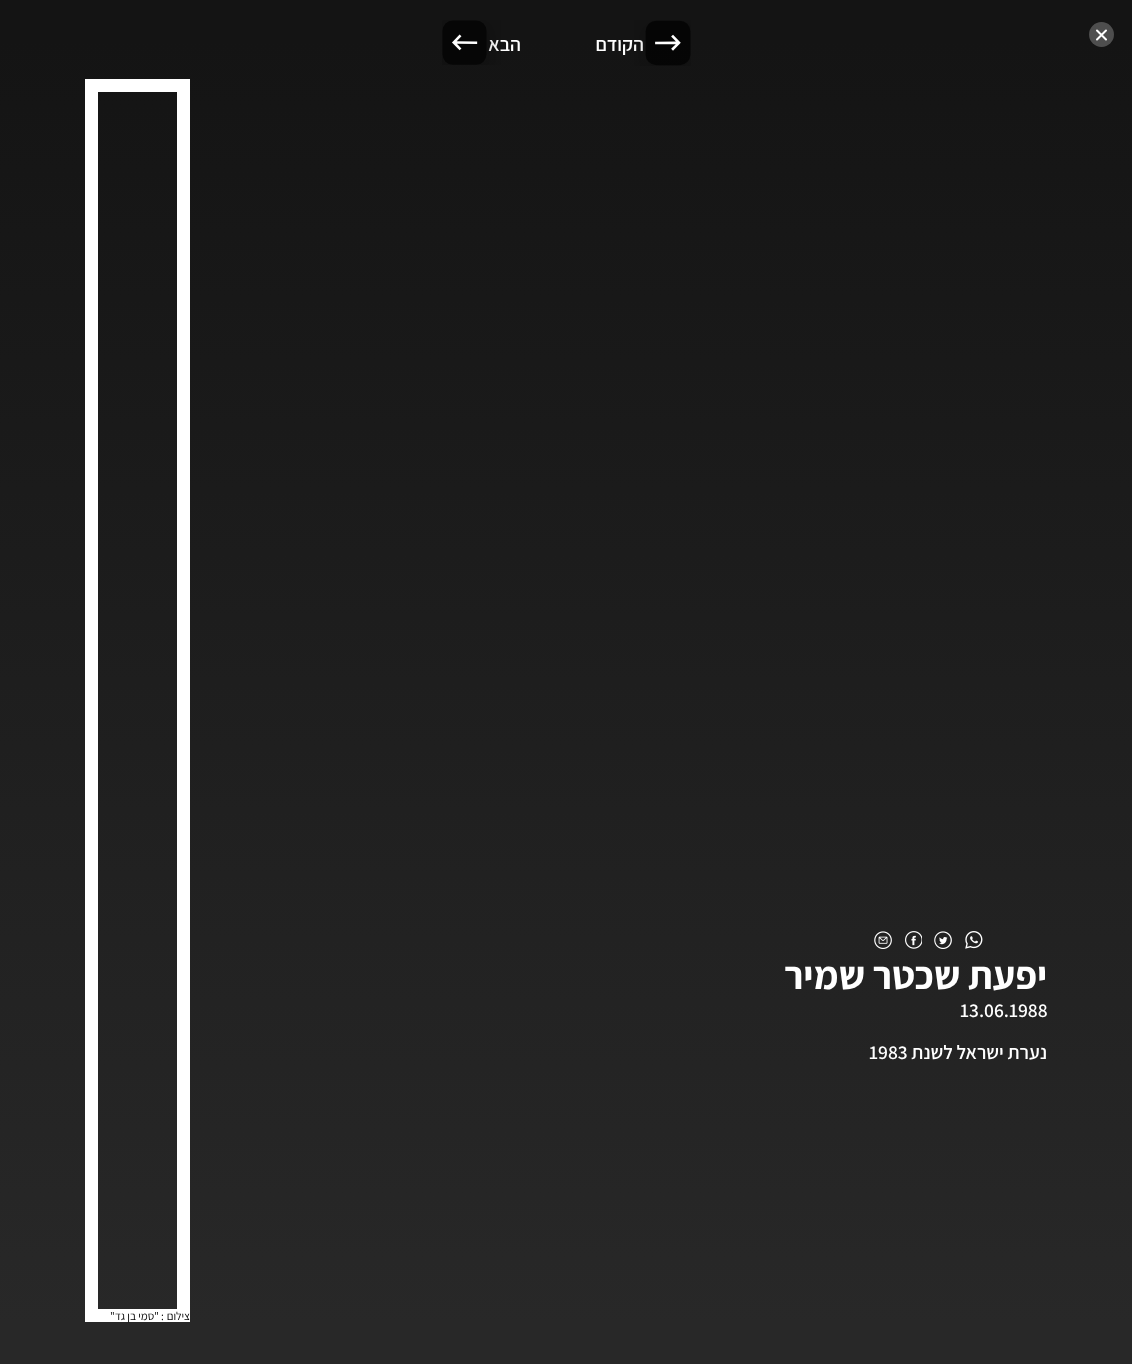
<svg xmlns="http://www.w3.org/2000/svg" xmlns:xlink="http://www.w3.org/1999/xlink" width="1132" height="1364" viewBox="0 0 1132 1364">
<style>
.cls-1{font:600 19.5px Assistant;direction:rtl;fill:#ffffff}
.cls-2{font:bold 39px Assistant;direction:rtl;fill:#ffffff}
.cls-3{font:600 19.5px Assistant;fill:#ffffff}
.cls-4{font:11.5px Assistant;direction:rtl;fill:#000000}
.cls-5{font:11.5px Assistant;fill:#000000}
</style>
<defs>
<linearGradient id="g1" gradientUnits="userSpaceOnUse" x1="566" y1="0" x2="566" y2="1364"><stop offset="0.03" stop-color="#141414"/><stop offset="0.97" stop-color="#282828"/></linearGradient>
</defs>
<rect width="100%" height="100%" fill="#ffffff"/>
<rect fill="url(#g1)" x="0" y="0" width="1132" height="1364"/>
<circle fill="#4e4e4e" cx="1101.5" cy="34.5" r="12.5"/>
<path fill="none" stroke="#ffffff" stroke-width="2" stroke-linecap="round" d="M1097 30.5L1106 39.5M1106 30.5L1097 39.5"/>
<image xlink:href="image2.png" x="965" y="931" width="18" height="18"/>
<image xlink:href="image3.png" x="934" y="931" width="18" height="18"/>
<image xlink:href="image4.png" x="905" y="931" width="17" height="18"/>
<image xlink:href="image5.png" x="874" y="931" width="18" height="18"/>
<rect fill="none" stroke="#ffffff" stroke-width="13" x="91.5" y="85.5" width="92" height="1230"/>
<text class="cls-1" x="644" y="51">הקודם</text>
<image xlink:href="image0.png" x="634" y="20" width="57" height="46"/>
<text class="cls-1" x="521" y="51">הבא</text>
<image xlink:href="image1.png" x="442" y="20" width="59" height="45"/>
<text class="cls-2" x="1047" y="989">יפעת שכטר שמיר</text>
<text class="cls-3" x="960" y="1017">13.06.1988</text>
<text class="cls-1" x="1047" y="1059">נערת ישראל לשנת</text>
<text class="cls-3" x="869" y="1059">1983</text>
<text class="cls-4" x="190" y="1320">צילום</text>
<text class="cls-5" x="161" y="1320">:</text>
<text class="cls-4" x="159" y="1320">"סמי בן גד"</text>
</svg>
